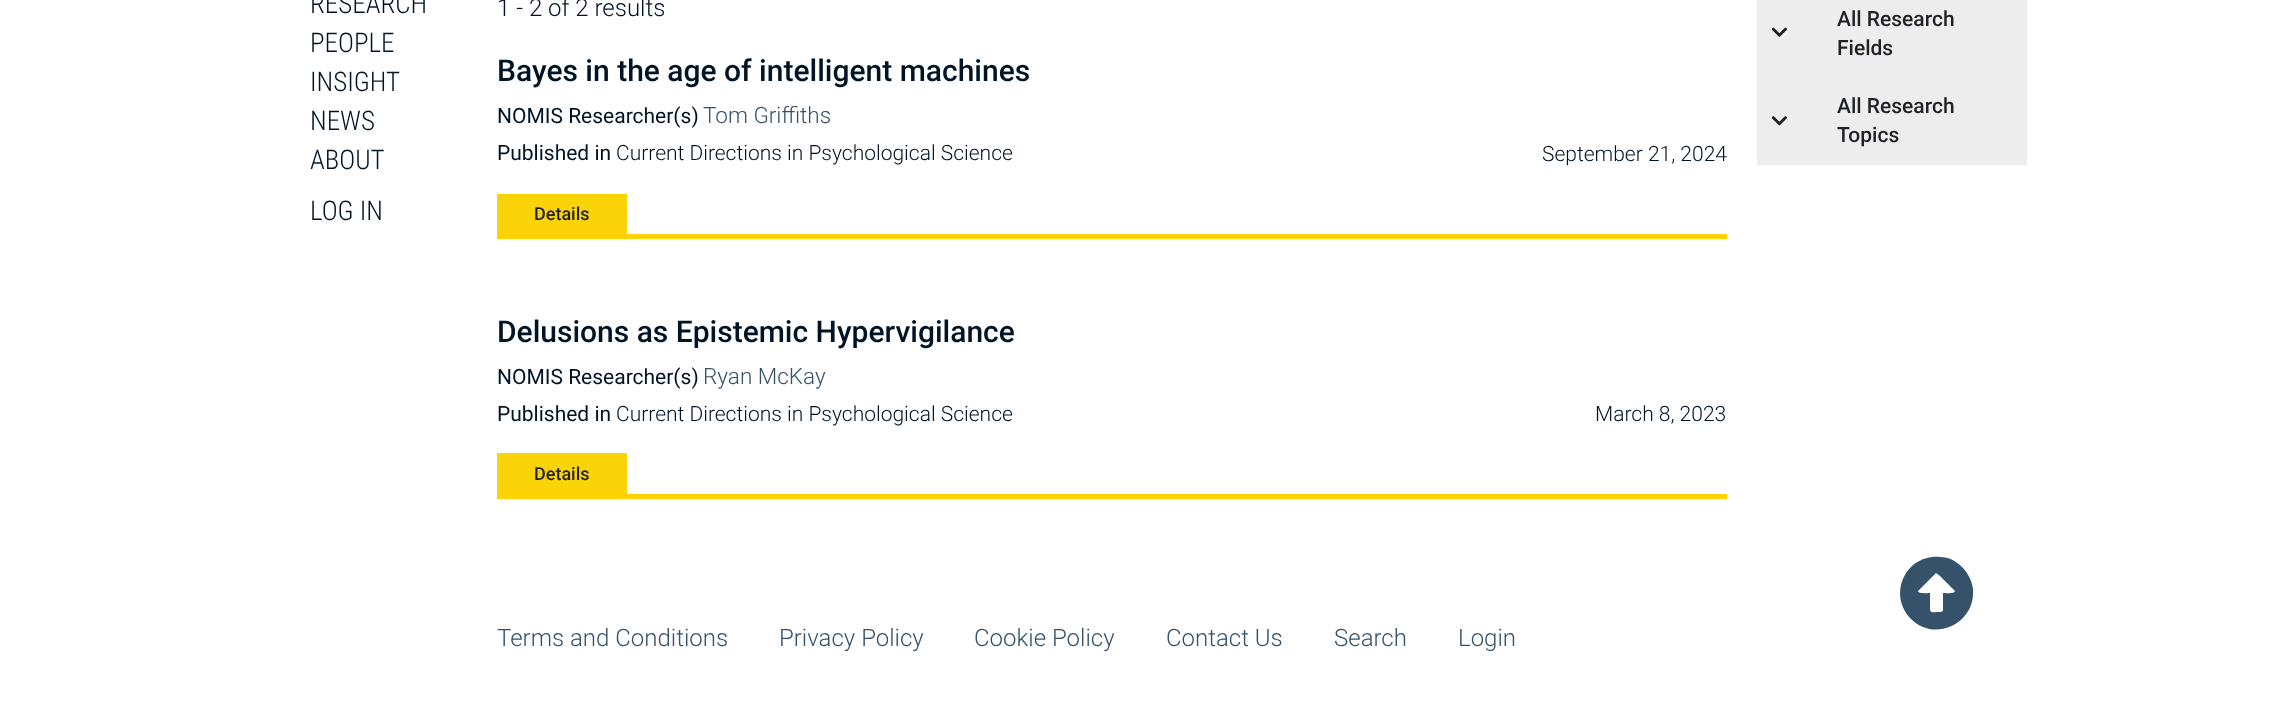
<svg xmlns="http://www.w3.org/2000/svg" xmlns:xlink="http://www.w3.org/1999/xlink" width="2283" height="710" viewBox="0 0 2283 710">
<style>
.cls-1{font:300 27px Roboto Condensed;fill:#001426}
.cls-2{font:300 24px Roboto;fill:#001426}
.cls-3{font:500 30px Roboto;fill:#001426}
.cls-4{font:21px Roboto;fill:#001426}
.cls-5{font:300 22.5px Roboto;fill:#36526b}
.cls-6{font:300 21px Roboto;fill:#001426}
.cls-7{font:500 18px Roboto;fill:#1f2124}
.cls-8{font:500 21px Roboto;fill:#1f2124}
.cls-9{font:300 24px Roboto;fill:#36526b}
</style>
<rect width="100%" height="100%" fill="#ffffff"/>
<rect fill="#ffd200" x="497" y="234" width="1230" height="5"/>
<rect fill="#fad408" x="497" y="194" width="130" height="40"/>
<rect fill="#ffd200" x="497" y="494" width="1230" height="5"/>
<rect fill="#fad408" x="497" y="453" width="130" height="41"/>
<rect fill="#ededed" x="1757" y="0" width="270" height="165"/>
<image xlink:href="image0.png" x="1771" y="27" width="16" height="10"/>
<image xlink:href="image1.png" x="1771" y="116" width="16" height="10"/>
<path fill="#36526b" d="M1911 619C1887 594 1906 554 1940 557C1949 557 1956 561 1962 567C1968 573 1972 581 1973 589C1976 623 1935 643 1911 619ZM1943 610V593C1945 593 1955 594 1955 591L1940 576L1936 573L1933 576L1918 591C1918 594 1928 593 1930 593V607C1930 614 1932 612 1938 612C1940 612 1943 612 1943 610Z"/>
<text class="cls-1"><tspan x="310" y="13">RESEARCH</tspan><tspan x="310" y="52">PEOPLE</tspan><tspan x="310" y="91">INSIGHT</tspan><tspan x="310" y="130">NEWS</tspan><tspan x="310" y="169">ABOUT</tspan><tspan x="310" y="220">LOG IN</tspan></text>
<text class="cls-2" x="497" y="16">1 - 2 of 2 results</text>
<text class="cls-3" x="497" y="81">Bayes in the age of intelligent machines</text>
<text class="cls-4" x="497" y="123">NOMIS Researcher(s)</text>
<text class="cls-5" x="703" y="123">Tom Griffiths</text>
<text class="cls-4" x="497" y="160">Published in</text>
<text class="cls-6" x="616" y="160">Current Directions in Psychological Science</text>
<text class="cls-6" x="1542" y="161">September 21, 2024</text>
<text class="cls-7" x="534" y="220">Details</text>
<text class="cls-3" x="497" y="342">Delusions as Epistemic Hypervigilance</text>
<text class="cls-4" x="497" y="384">NOMIS Researcher(s)</text>
<text class="cls-5" x="703" y="384">Ryan McKay</text>
<text class="cls-4" x="497" y="421">Published in</text>
<text class="cls-6" x="616" y="421">Current Directions in Psychological Science</text>
<text class="cls-6" x="1595" y="421">March 8, 2023</text>
<text class="cls-7" x="534" y="480">Details</text>
<text class="cls-8"><tspan x="1837" y="26">All Research</tspan><tspan x="1837" y="55">Fields</tspan></text>
<text class="cls-8"><tspan x="1837" y="113">All Research</tspan><tspan x="1837" y="142">Topics</tspan></text>
<text class="cls-9" x="497" y="646">Terms and Conditions</text>
<text class="cls-9" x="779" y="646">Privacy Policy</text>
<text class="cls-9" x="974" y="646">Cookie Policy</text>
<text class="cls-9" x="1166" y="646">Contact Us</text>
<text class="cls-9" x="1334" y="646">Search</text>
<text class="cls-9" x="1458" y="646">Login</text>
</svg>
